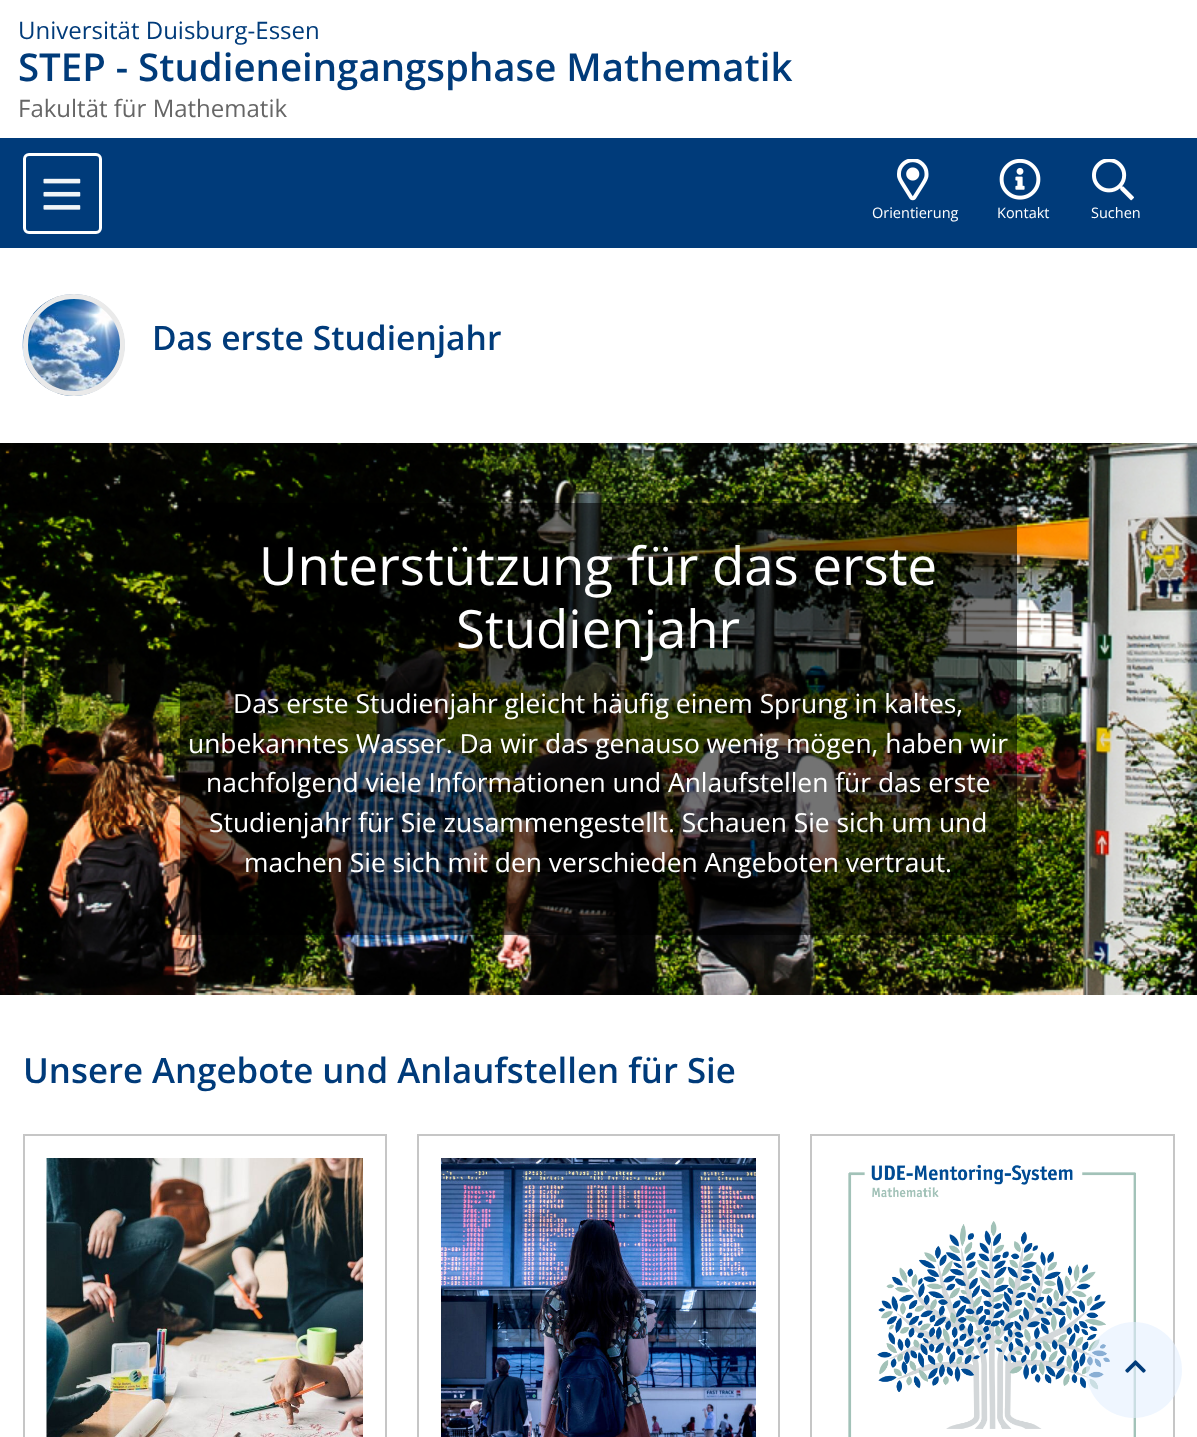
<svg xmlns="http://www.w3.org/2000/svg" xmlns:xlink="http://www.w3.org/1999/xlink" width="1197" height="1437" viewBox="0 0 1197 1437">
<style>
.cls-1{font:24px Open Sans;fill:#003b7a}
.cls-2{font:600 38.4px Open Sans;fill:#003b7a}
.cls-3{font:24px Open Sans;fill:#666666}
.cls-4{font:14.5px Open Sans;fill:#ffffff}
.cls-5{font:600 33.6px Open Sans;fill:#003b7a}
.cls-6{font:52.75px Open Sans;fill:#ffffff}
.cls-7{font:26.4px Open Sans;fill:#ffffff}
.cls-8{font:600 34.8px Open Sans;fill:#003b7a}
</style>
<rect width="100%" height="100%" fill="#ffffff"/>
<rect fill="#003b7a" x="0" y="138" width="1197" height="110"/>
<rect fill="none" stroke="#ffffff" stroke-width="3" x="24.5" y="154.5" width="76" height="78" rx="4.5"/>
<image xlink:href="image0.png" x="43" y="178" width="38" height="32"/>
<image xlink:href="image1.png" x="897" y="159" width="32" height="42"/>
<image xlink:href="image2.png" x="999" y="159" width="42" height="41"/>
<image xlink:href="image3.png" x="1092" y="159" width="42" height="42"/>
<image xlink:href="image4.png" x="22" y="294" width="103" height="102"/>
<circle fill="none" stroke="#eaeaea" stroke-width="5" cx="74" cy="345" r="48.5"/>
<image xlink:href="image5.png" x="0" y="443" width="1197" height="552"/>
<rect fill="#000000" fill-opacity="0.55" x="180" y="503" width="837" height="432"/>
<rect fill="none" stroke="#c6c6c6" stroke-width="2" x="24" y="1135" width="362" height="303"/>
<image xlink:href="image6.png" x="46" y="1158" width="317" height="279"/>
<rect fill="none" stroke="#c6c6c6" stroke-width="2" x="418" y="1135" width="361" height="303"/>
<image xlink:href="image7.png" x="441" y="1158" width="315" height="279"/>
<rect fill="none" stroke="#c6c6c6" stroke-width="2" x="811" y="1135" width="363" height="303"/>
<image xlink:href="image8.png" x="848" y="1164" width="288" height="273"/>
<circle fill="#e4f0ff" fill-opacity="0.6" cx="1134" cy="1370" r="48"/>
<image xlink:href="image9.png" x="1125" y="1360" width="21" height="13"/>
<text class="cls-1" x="18" y="39">Universität Duisburg-Essen</text>
<text class="cls-2" x="18" y="81">STEP - Studieneingangsphase Mathematik</text>
<text class="cls-3" x="18" y="117">Fakultät für Mathematik</text>
<text class="cls-4" x="872" y="218">Orientierung</text>
<text class="cls-4" x="997" y="218">Kontakt</text>
<text class="cls-4" x="1091" y="218">Suchen</text>
<text class="cls-5" x="152" y="350">Das erste Studienjahr</text>
<text class="cls-6" x="259" y="585">Unterstützung für das erste</text>
<text class="cls-6" x="456" y="648">Studienjahr</text>
<text class="cls-7" x="233" y="713">Das erste Studienjahr gleicht häufig einem Sprung in kaltes,</text>
<text class="cls-7" x="188" y="753">unbekanntes Wasser. Da wir das genauso wenig mögen, haben wir</text>
<text class="cls-7" x="206" y="792">nachfolgend viele Informationen und Anlaufstellen für das erste</text>
<text class="cls-7" x="209" y="832">Studienjahr für Sie zusammengestellt. Schauen Sie sich um und</text>
<text class="cls-7" x="244" y="872">machen Sie sich mit den verschieden Angeboten vertraut.</text>
<text class="cls-8" x="23" y="1083">Unsere Angebote und Anlaufstellen für Sie</text>
</svg>
